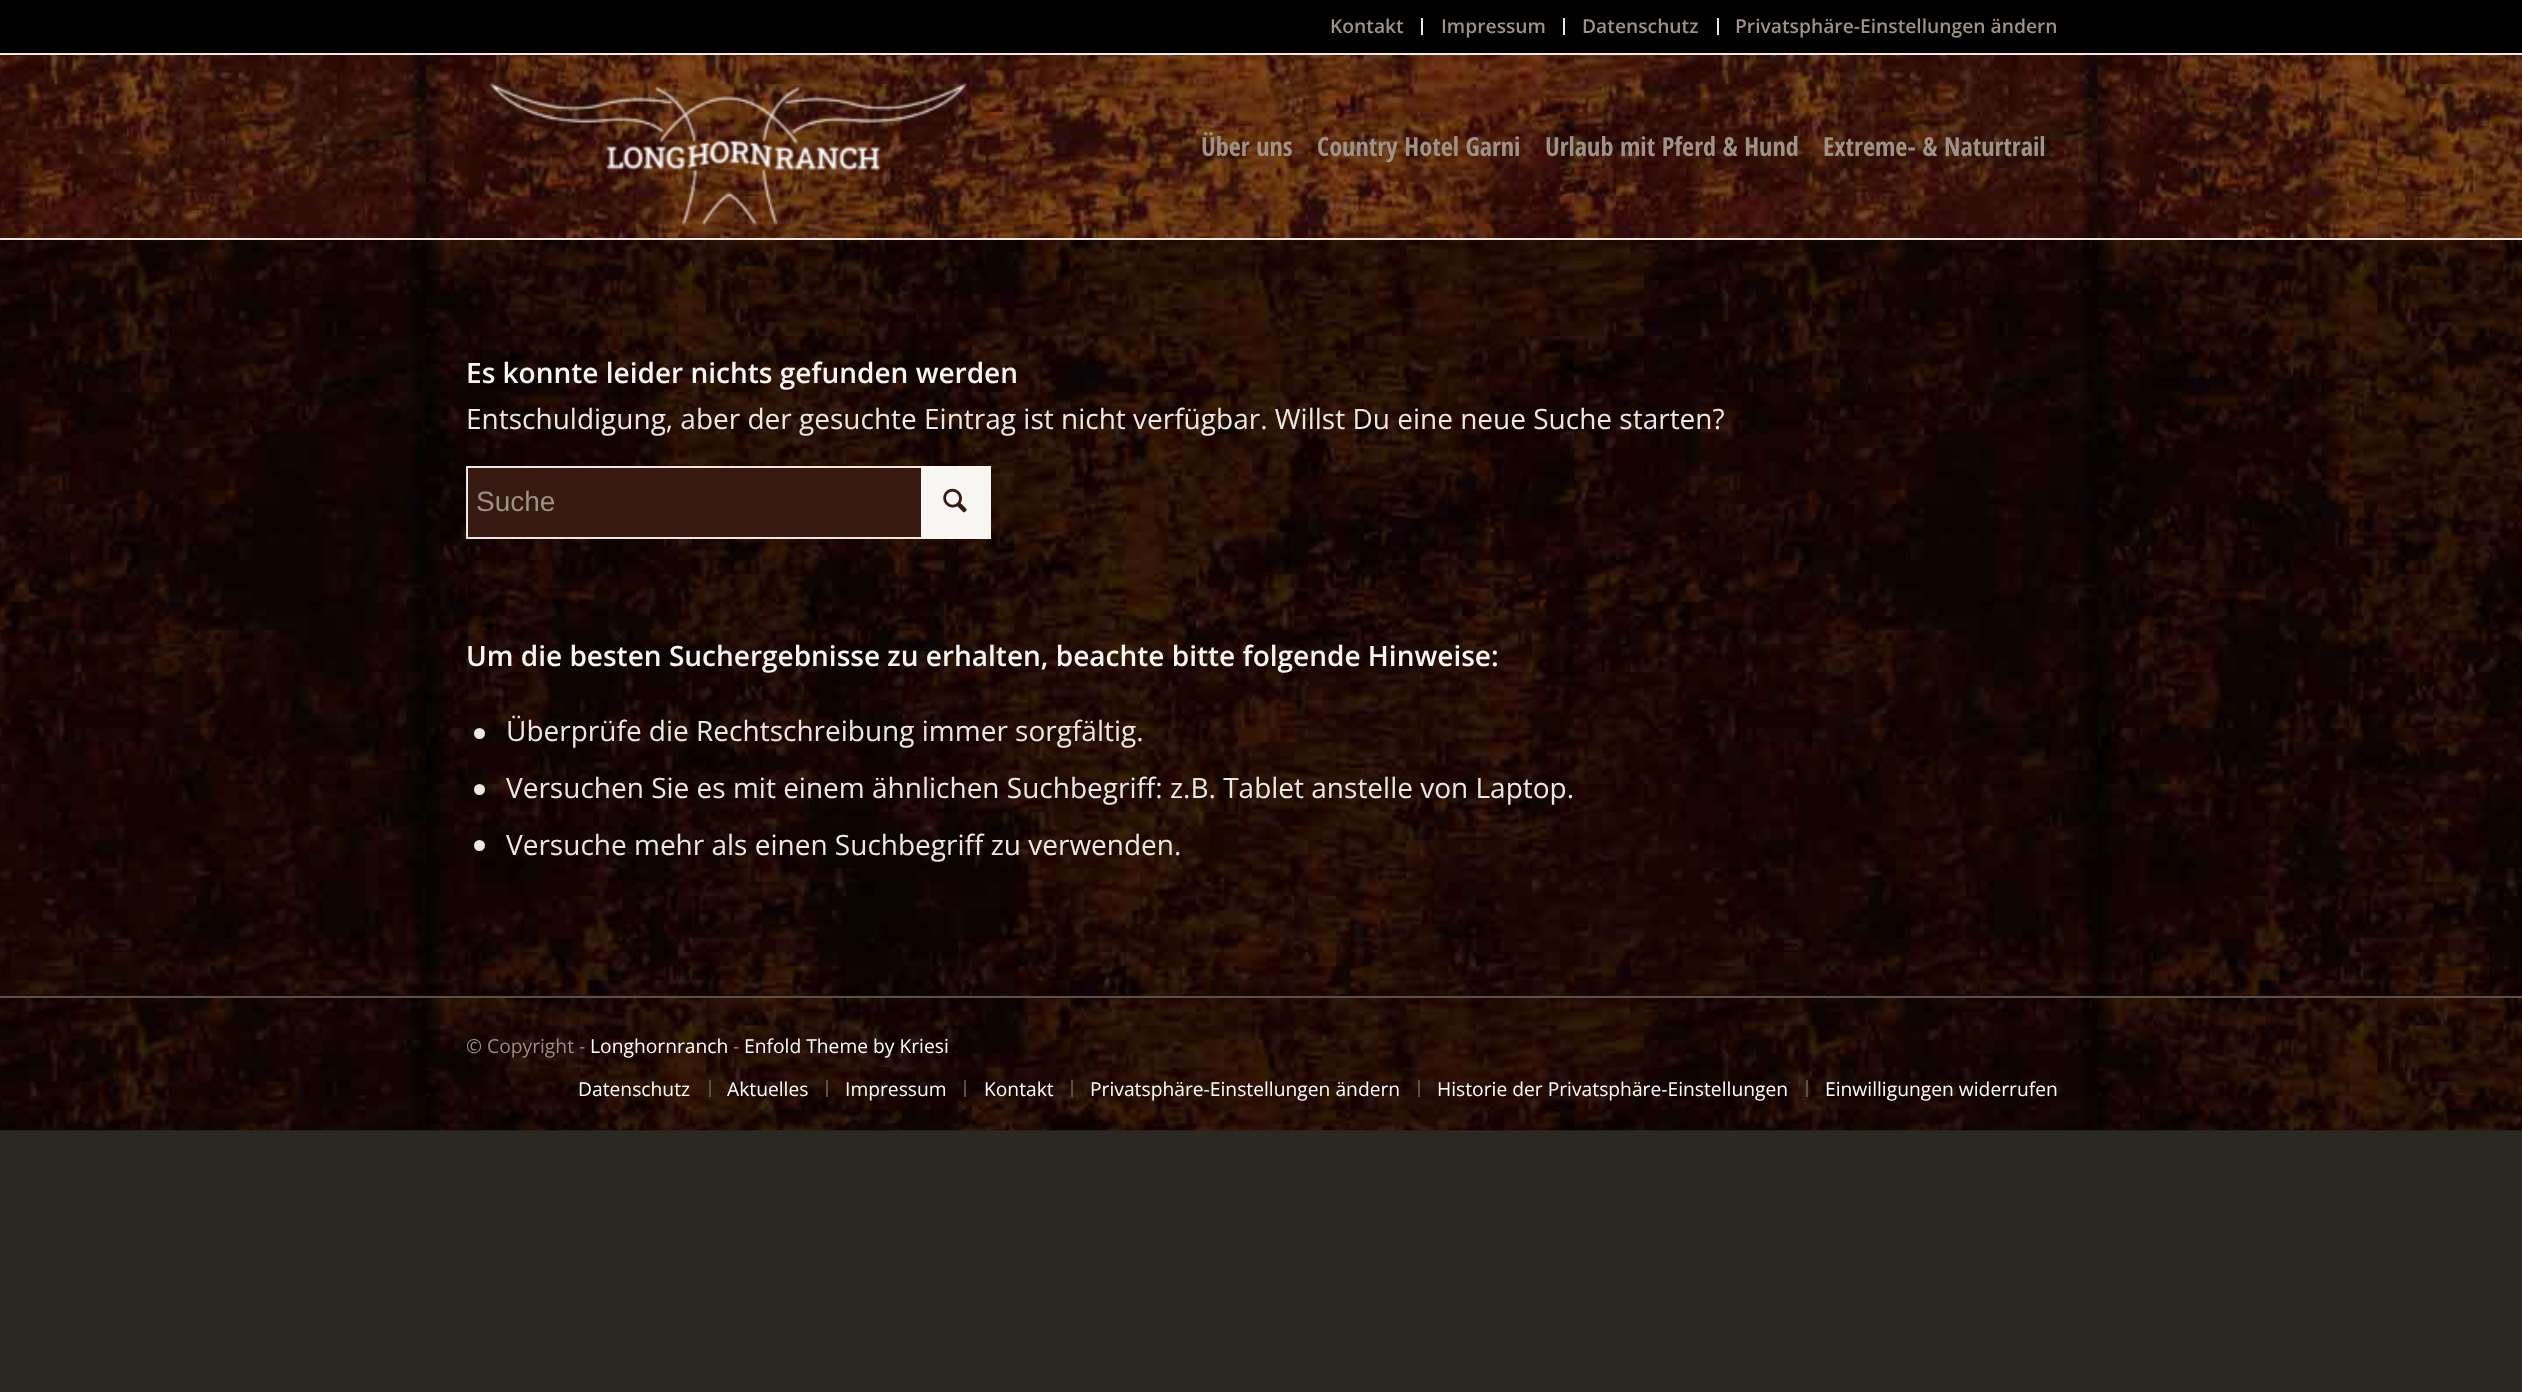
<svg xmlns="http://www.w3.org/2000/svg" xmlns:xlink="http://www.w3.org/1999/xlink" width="2522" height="1392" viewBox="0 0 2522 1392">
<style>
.cls-1{font:600 19.25px Open Sans;fill:#9c9288}
.cls-2{font:bold 26.25px Open Sans Condensed;fill:#9c9288}
.cls-3{font:600 28px Open Sans;fill:#f8f6f2}
.cls-4{font:28px Open Sans;fill:#ebe8df}
.cls-5{font:28px Liberation Sans;fill:#9c9288}
.cls-6{font:19.25px Open Sans;fill:#988f81}
.cls-7{font:19.25px Open Sans;fill:#ffffff}
</style>
<rect width="100%" height="100%" fill="#2b2822"/>
<rect fill="#000000" x="0" y="0" width="2522" height="53"/>
<rect fill="#ebe8e2" x="0" y="53" width="2522" height="2"/>
<rect fill="#ebe8e2" x="1421" y="18" width="2" height="17"/>
<rect fill="#ebe8e2" x="1563" y="18" width="2" height="17"/>
<rect fill="#ebe8e2" x="1717" y="18" width="2" height="17"/>
<image xlink:href="image2.png" x="0" y="236" width="2522" height="760"/>
<image xlink:href="image0.png" x="0" y="55" width="2522" height="183"/>
<rect fill="#ebe8e2" x="0" y="238" width="2522" height="2"/>
<image xlink:href="image1.png" x="489" y="82" width="479" height="144"/>
<rect fill="#371912" x="468" y="468" width="453" height="69"/>
<rect fill="none" stroke="#ebe8e2" stroke-width="2" x="467" y="467" width="523" height="71"/>
<rect fill="#f8f6f2" x="921" y="466" width="70" height="73"/>
<image xlink:href="image3.png" x="943" y="488" width="24" height="25"/>
<circle fill="#ebe8df" cx="479.5" cy="733.5" r="5.5"/>
<circle fill="#ebe8df" cx="479.5" cy="789.5" r="5.5"/>
<circle fill="#ebe8df" cx="479.5" cy="845.5" r="5.5"/>
<image xlink:href="image4.png" x="0" y="995" width="2522" height="136"/>
<rect fill="#575149" x="0" y="996" width="2522" height="2"/>
<rect fill="#575149" x="709" y="1080" width="2" height="17"/>
<rect fill="#575149" x="826" y="1080" width="2" height="17"/>
<rect fill="#575149" x="964" y="1080" width="2" height="17"/>
<rect fill="#575149" x="1071" y="1080" width="2" height="17"/>
<rect fill="#575149" x="1418" y="1080" width="2" height="17"/>
<rect fill="#575149" x="1806" y="1080" width="2" height="17"/>
<text class="cls-1" x="1330" y="33">Kontakt</text>
<text class="cls-1" x="1441" y="33">Impressum</text>
<text class="cls-1" x="1582" y="33">Datenschutz</text>
<text class="cls-1" x="1735" y="33">Privatsphäre-Einstellungen ändern</text>
<text class="cls-2" x="1201" y="156">Über uns</text>
<text class="cls-2" x="1317" y="156">Country Hotel Garni</text>
<text class="cls-2" x="1545" y="156">Urlaub mit Pferd &amp; Hund</text>
<text class="cls-2" x="1823" y="156">Extreme- &amp; Naturtrail</text>
<text class="cls-3" x="466" y="383">Es konnte leider nichts gefunden werden</text>
<text class="cls-4" x="466" y="429">Entschuldigung, aber der gesuchte Eintrag ist nicht verfügbar. Willst Du eine neue Suche starten?</text>
<text class="cls-5" x="476" y="511">Suche</text>
<text class="cls-3" x="466" y="666">Um die besten Suchergebnisse zu erhalten, beachte bitte folgende Hinweise:</text>
<text class="cls-4" x="506" y="741">Überprüfe die Rechtschreibung immer sorgfältig.</text>
<text class="cls-4" x="506" y="798">Versuchen Sie es mit einem ähnlichen Suchbegriff: z.B. Tablet anstelle von Laptop.</text>
<text class="cls-4" x="506" y="855">Versuche mehr als einen Suchbegriff zu verwenden.</text>
<text class="cls-6" x="466" y="1053">© Copyright -</text>
<text class="cls-7" x="590" y="1053">Longhornranch</text>
<text class="cls-6" x="733" y="1053">-</text>
<text class="cls-7" x="744" y="1053">Enfold Theme by Kriesi</text>
<text class="cls-7" x="578" y="1096">Datenschutz</text>
<text class="cls-7" x="727" y="1096">Aktuelles</text>
<text class="cls-7" x="845" y="1096">Impressum</text>
<text class="cls-7" x="984" y="1096">Kontakt</text>
<text class="cls-7" x="1090" y="1096">Privatsphäre-Einstellungen ändern</text>
<text class="cls-7" x="1437" y="1096">Historie der Privatsphäre-Einstellungen</text>
<text class="cls-7" x="1825" y="1096">Einwilligungen widerrufen</text>
</svg>
